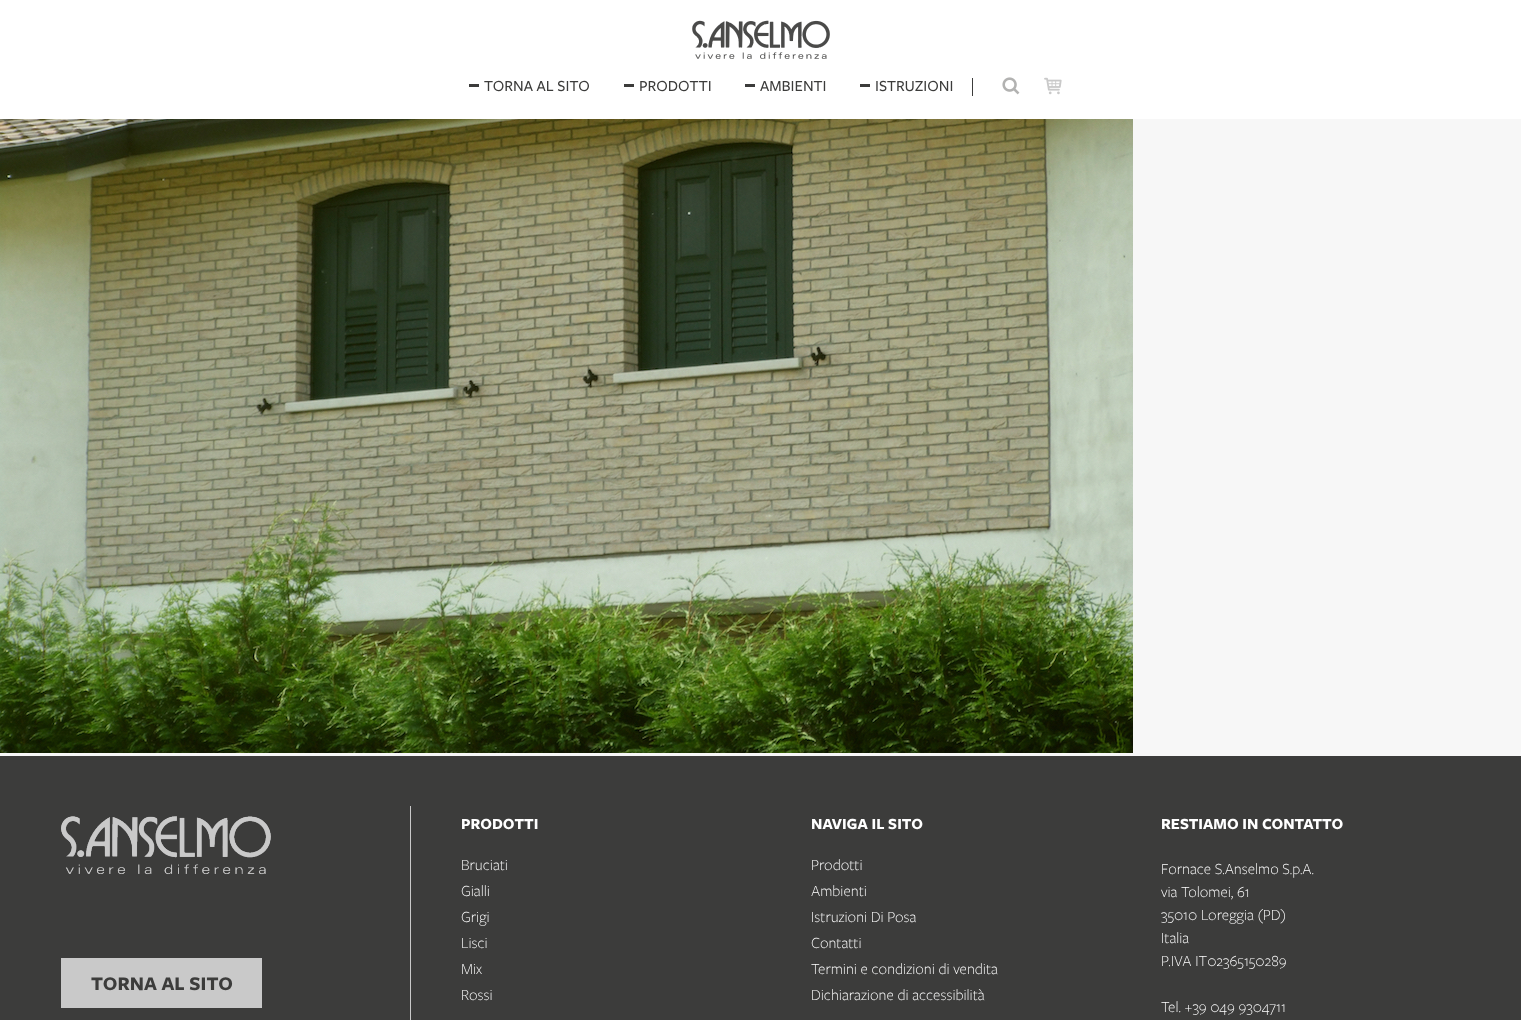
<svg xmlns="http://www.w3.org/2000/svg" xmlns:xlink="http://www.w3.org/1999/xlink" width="1521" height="1020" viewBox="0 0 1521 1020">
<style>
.cls-1{font:500 16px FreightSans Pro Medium;fill:#3c3c3b}
.cls-2{font:bold 20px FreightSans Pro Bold;fill:#3c3c3b}
.cls-3{font:bold 16px FreightSans Pro Bold;fill:#ffffff}
.cls-4{font:300 16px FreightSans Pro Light;fill:#ffffff}
</style>
<rect width="100%" height="100%" fill="#f7f7f7"/>
<rect fill="#ffffff" x="0" y="0" width="1521" height="119"/>
<image xlink:href="image0.png" x="692" y="20" width="138" height="39"/>
<rect fill="#3c3c3b" x="469" y="84" width="10" height="3"/>
<rect fill="#3c3c3b" x="624" y="84" width="10" height="3"/>
<rect fill="#3c3c3b" x="745" y="84" width="10" height="3"/>
<rect fill="#3c3c3b" x="860" y="84" width="10" height="3"/>
<rect fill="#3c3c3b" x="972" y="78" width="1" height="18"/>
<image xlink:href="image1.png" x="1002" y="77" width="18" height="18"/>
<image xlink:href="image2.png" x="1044" y="77" width="18" height="18"/>
<image xlink:href="image3.png" x="0" y="119" width="1133" height="634"/>
<rect fill="#3c3c3b" x="0" y="756" width="1521" height="264"/>
<rect fill="#c9c9c9" x="410" y="806" width="1" height="214"/>
<image xlink:href="image4.png" x="61" y="816" width="210" height="59"/>
<rect fill="#c9c9c9" x="61" y="958" width="201" height="50"/>
<text class="cls-1" x="484" y="91">TORNA AL SITO</text>
<text class="cls-1" x="639" y="91">PRODOTTI</text>
<text class="cls-1" x="760" y="91">AMBIENTI</text>
<text class="cls-1" x="875" y="91">ISTRUZIONI</text>
<text class="cls-2" x="91" y="990">TORNA AL SITO</text>
<text class="cls-3" x="461" y="829">PRODOTTI</text>
<text class="cls-4"><tspan x="461" y="870">Bruciati</tspan><tspan x="461" y="896">Gialli</tspan><tspan x="461" y="922">Grigi</tspan><tspan x="461" y="948">Lisci</tspan><tspan x="461" y="974">Mix</tspan><tspan x="461" y="1000">Rossi</tspan></text>
<text class="cls-3" x="811" y="829">NAVIGA IL SITO</text>
<text class="cls-4"><tspan x="811" y="870">Prodotti</tspan><tspan x="811" y="896">Ambienti</tspan><tspan x="811" y="922">Istruzioni Di Posa</tspan><tspan x="811" y="948">Contatti</tspan><tspan x="811" y="974">Termini e condizioni di vendita</tspan><tspan x="811" y="1000">Dichiarazione di accessibilità</tspan></text>
<text class="cls-3" x="1161" y="829">RESTIAMO IN CONTATTO</text>
<text class="cls-4"><tspan x="1161" y="874">Fornace S.Anselmo S.p.A.</tspan><tspan x="1161" y="897">via Tolomei, 61</tspan><tspan x="1161" y="920">35010 Loreggia (PD)</tspan><tspan x="1161" y="943">Italia</tspan><tspan x="1161" y="966">P.IVA IT02365150289</tspan></text>
<text class="cls-4" x="1161" y="1012">Tel. +39 049 9304711</text>
</svg>
